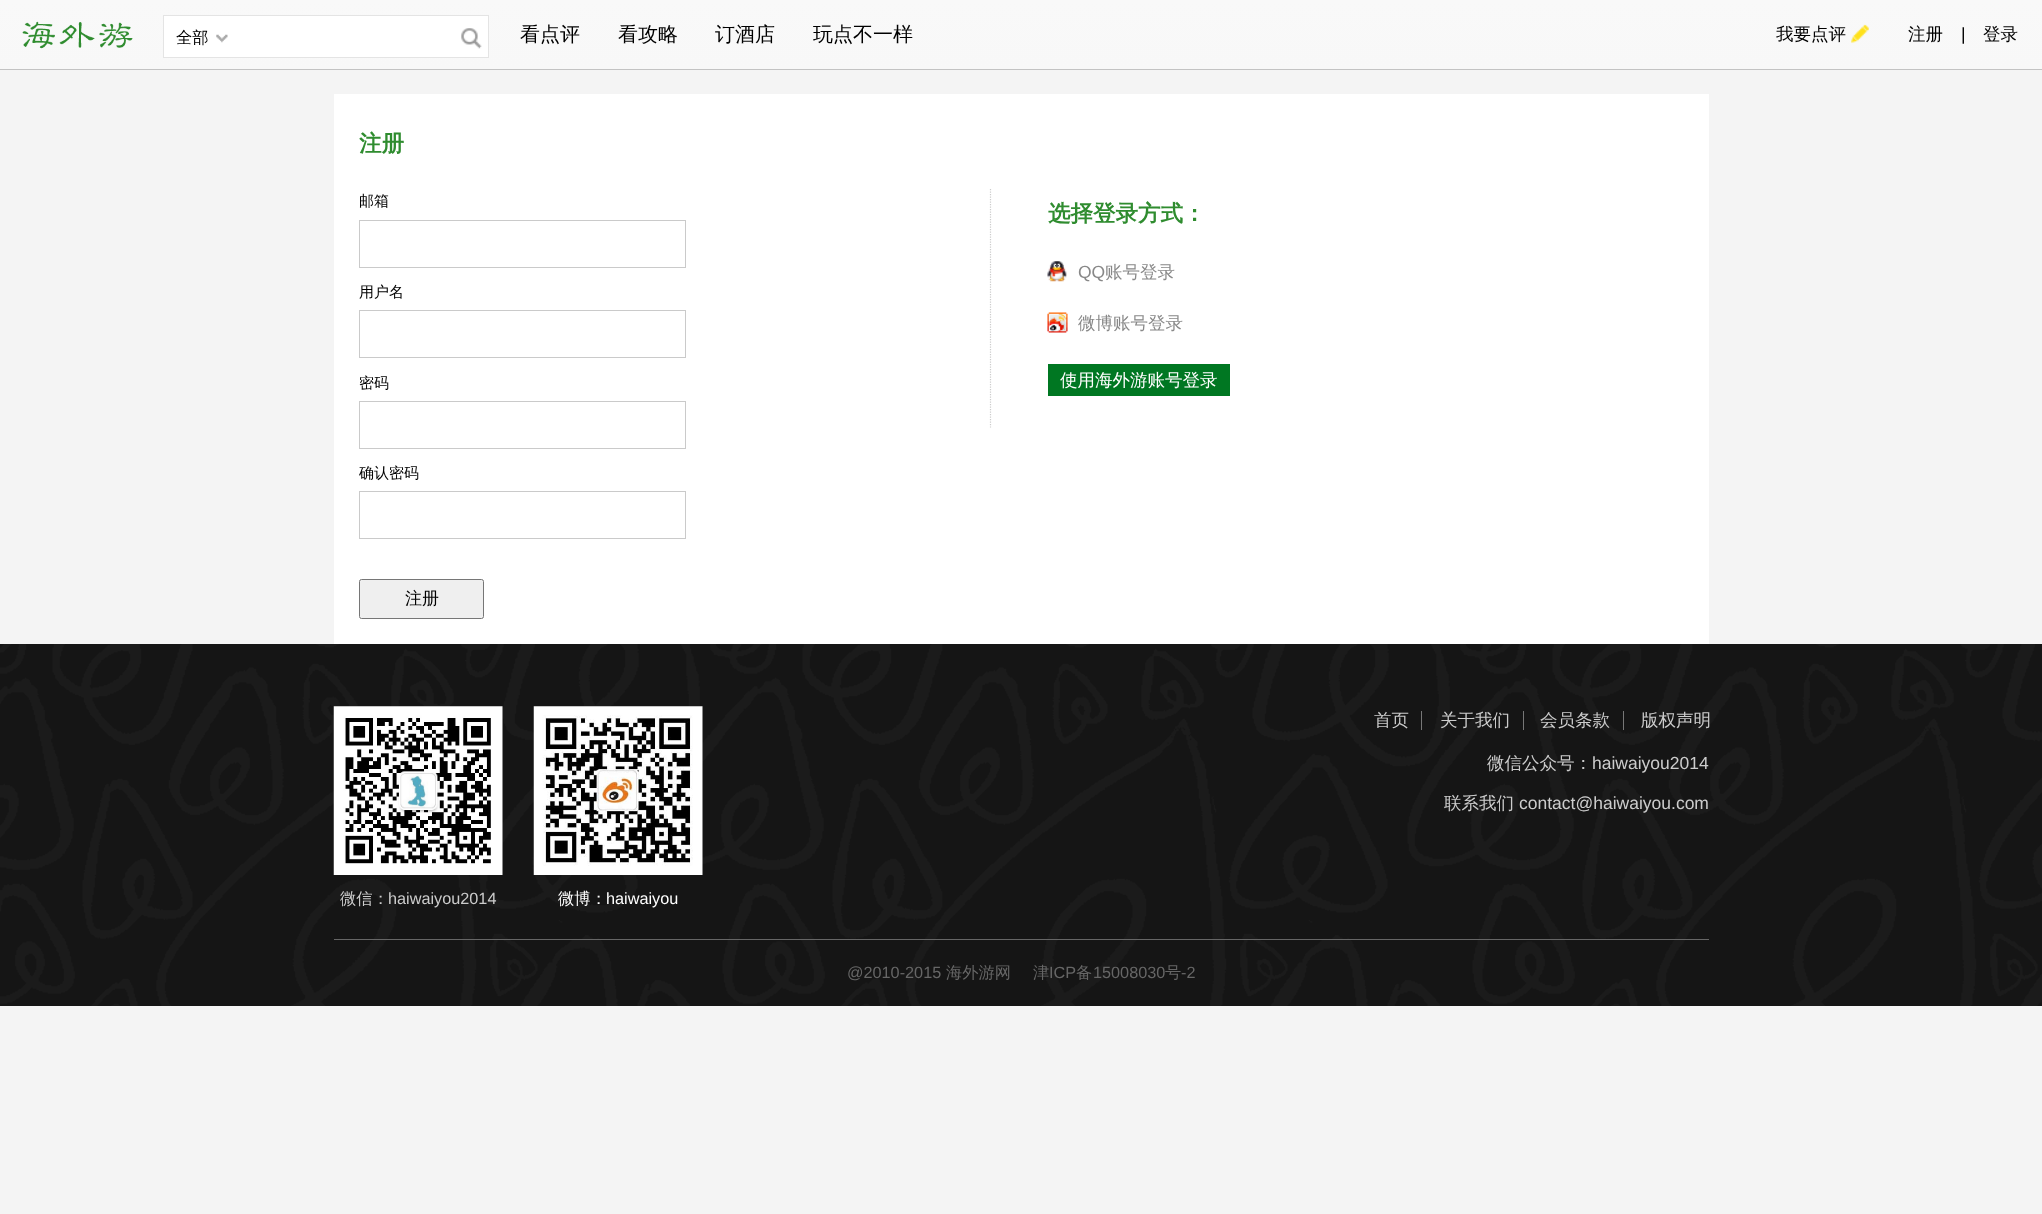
<svg xmlns="http://www.w3.org/2000/svg" xmlns:xlink="http://www.w3.org/1999/xlink" width="2042" height="1214" viewBox="0 0 2042 1214">
<style>
.cls-1{font:500 16.25px WenQuanYi Zen Hei;fill:#000000}
.cls-2{font:500 20px WenQuanYi Zen Hei;fill:#000000}
.cls-3{font:500 17.5px WenQuanYi Zen Hei;fill:#000000}
.cls-4{font:17.5px Liberation Sans;fill:#000000}
.cls-5{font:bold 22.5px WenQuanYi Zen Hei;fill:#2f8c2f}
.cls-6{font:500 15px WenQuanYi Zen Hei;fill:#000000}
.cls-7{font:500 17px WenQuanYi Zen Hei;fill:#000000}
.cls-8{font:17.5px Liberation Sans;fill:#888888}
.cls-9{font:500 17.5px WenQuanYi Zen Hei;fill:#888888}
.cls-10{font:500 17.5px WenQuanYi Zen Hei;fill:#ffffff}
.cls-11{font:500 17.5px WenQuanYi Zen Hei;fill:#cccccc}
.cls-12{font:17.5px Liberation Sans;fill:#cccccc}
.cls-13{font:500 16.25px WenQuanYi Zen Hei;fill:#cccccc}
.cls-14{font:16.25px Liberation Sans;fill:#cccccc}
.cls-15{font:500 16.25px WenQuanYi Zen Hei;fill:#ffffff}
.cls-16{font:16.25px Liberation Sans;fill:#ffffff}
.cls-17{font:16.25px Liberation Sans;fill:#666666}
.cls-18{font:500 16.25px WenQuanYi Zen Hei;fill:#666666}
</style>
<defs>
<linearGradient id="g1" gradientUnits="userSpaceOnUse" x1="1021" y1="0" x2="1021" y2="69"><stop offset="0" stop-color="#f9f9f9"/><stop offset="1" stop-color="#f8f8f8"/></linearGradient>
</defs>
<rect width="100%" height="100%" fill="#f4f4f4"/>
<path fill="#c3c3c3" d="M0 69V70H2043V1H2042V69Z"/>
<rect fill="url(#g1)" x="0" y="0" width="2042" height="69"/>
<image xlink:href="image0.png" x="22" y="21" width="111" height="28"/>
<rect fill="#ffffff" stroke="#e4e4e4" x="163.5" y="15.5" width="325" height="42"/>
<image xlink:href="image1.png" x="216" y="34" width="12" height="9"/>
<image xlink:href="image2.png" x="461" y="28" width="21" height="21"/>
<image xlink:href="image3.png" x="1851" y="24" width="18" height="19"/>
<rect fill="#ffffff" x="334" y="94" width="1375" height="550"/>
<rect fill="none" stroke="#cacaca" x="359.5" y="220.5" width="326" height="47"/>
<rect fill="none" stroke="#cacaca" x="359.5" y="310.5" width="326" height="47"/>
<rect fill="none" stroke="#cacaca" x="359.5" y="401.5" width="326" height="47"/>
<rect fill="none" stroke="#cacaca" x="359.5" y="491.5" width="326" height="47"/>
<rect fill="#efefef" stroke="#767676" x="359.5" y="579.5" width="124" height="39" rx="2"/>
<path fill="none" stroke="#cccccc" stroke-width="1.2" stroke-dasharray="1.25 1.25" d="M990.5 189V427.5"/>
<image xlink:href="image4.png" x="1047" y="261" width="20" height="21"/>
<image xlink:href="image5.png" x="1047" y="312" width="21" height="21"/>
<rect fill="#007722" x="1048" y="364" width="182" height="32"/>
<rect fill="#151515" x="0" y="644" width="2042" height="362"/>
<image xlink:href="image6.png" x="0" y="644" width="2042" height="362"/>
<rect fill="#777777" x="1421" y="711" width="1" height="19"/>
<rect fill="#777777" x="1523" y="711" width="1" height="19"/>
<rect fill="#777777" x="1623" y="711" width="1" height="19"/>
<image xlink:href="image7.png" x="333" y="706" width="170" height="169"/>
<image xlink:href="image8.png" x="533" y="706" width="170" height="169"/>
<rect fill="#666666" x="334" y="939" width="1375" height="1"/>
<text class="cls-1" x="176" y="43">全部</text>
<text class="cls-2" x="520" y="41">看点评</text>
<text class="cls-2" x="618" y="41">看攻略</text>
<text class="cls-2" x="715" y="41">订酒店</text>
<text class="cls-2" x="813" y="41">玩点不一样</text>
<text class="cls-3" x="1776" y="40">我要点评</text>
<text class="cls-3" x="1908" y="40">注册</text>
<text class="cls-4" x="1961" y="40">|</text>
<text class="cls-3" x="1983" y="40">登录</text>
<text class="cls-5" x="359" y="151">注册</text>
<text class="cls-6" x="359" y="206">邮箱</text>
<text class="cls-6" x="359" y="297">用户名</text>
<text class="cls-6" x="359" y="388">密码</text>
<text class="cls-6" x="359" y="478">确认密码</text>
<text class="cls-7" x="405" y="604">注册</text>
<text class="cls-5" x="1048" y="221">选择登录方式：</text>
<text class="cls-8" x="1078" y="278">QQ</text>
<text class="cls-9" x="1105" y="278">账号登录</text>
<text class="cls-9" x="1078" y="329">微博账号登录</text>
<text class="cls-10" x="1060" y="386">使用海外游账号登录</text>
<text class="cls-11" x="1374" y="726">首页</text>
<text class="cls-11" x="1440" y="726">关于我们</text>
<text class="cls-11" x="1540" y="726">会员条款</text>
<text class="cls-11" x="1641" y="726">版权声明</text>
<text class="cls-11" x="1487" y="769">微信公众号：</text>
<text class="cls-12" x="1592" y="769">haiwaiyou2014</text>
<text class="cls-11" x="1444" y="809">联系我们</text>
<text class="cls-12" x="1519" y="809">contact@haiwaiyou.com</text>
<text class="cls-13" x="340" y="904">微信：</text>
<text class="cls-14" x="388" y="904">haiwaiyou2014</text>
<text class="cls-15" x="558" y="904">微博：</text>
<text class="cls-16" x="606" y="904">haiwaiyou</text>
<text class="cls-17" x="847" y="978">@2010-2015</text>
<text class="cls-18" x="946" y="978">海外游网</text>
<text class="cls-18" x="1033" y="978">津</text>
<text class="cls-17" x="1049" y="978">ICP</text>
<text class="cls-18" x="1076" y="978">备</text>
<text class="cls-17" x="1093" y="978">15008030</text>
<text class="cls-18" x="1165" y="978">号</text>
<text class="cls-17" x="1181" y="978">-2</text>
</svg>
